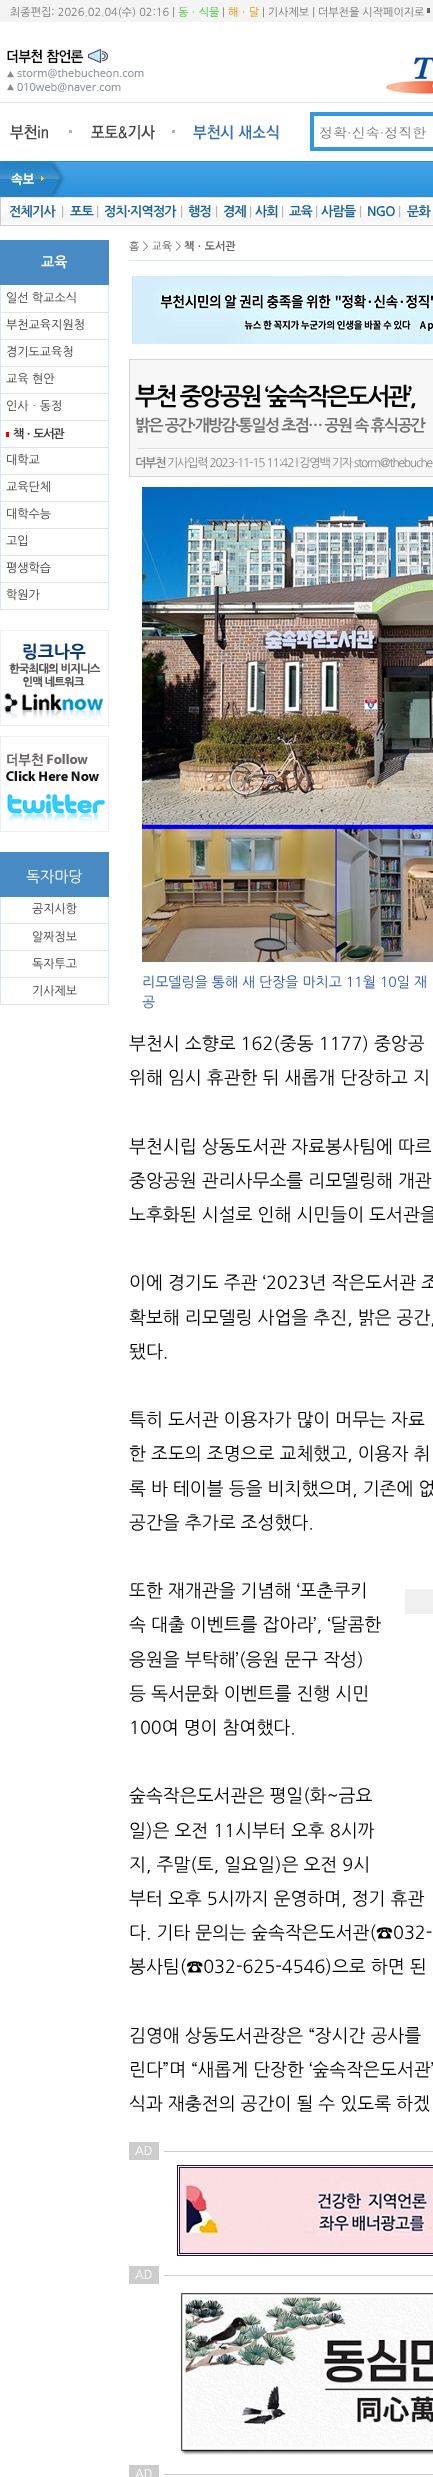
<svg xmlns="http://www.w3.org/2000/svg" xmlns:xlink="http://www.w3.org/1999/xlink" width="433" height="2477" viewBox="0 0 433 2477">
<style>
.cls-1{font:11px NanumGothic;fill:#777777}
.cls-2{font:11px NanumGothic;fill:#47c83e}
.cls-3{font:11px NanumGothic;fill:#db9700}
.cls-4{font:14px Dotum;fill:#777777}
.cls-5{font:bold 13px NanumGothic;letter-spacing:-0.75px;fill:#1c6396}
.cls-6{font:13px NanumGothic;letter-spacing:-0.75px;fill:#aaaaaa}
.cls-7{font:bold 14px NanumGothic;fill:#ffffff}
.cls-8{font:12px NanumGothic;fill:#3c3c3c}
.cls-9{font:bold 12px NanumGothic;letter-spacing:-1.2px;fill:#3c3c3c}
.cls-10{font:15px NanumGothic;fill:#ffffff}
.cls-11{font:11px NanumGothic;fill:#666666}
.cls-12{font:bold 11px NanumGothic;fill:#666666}
.cls-13{font:bold 24px NanumGothic;letter-spacing:-2.4px;fill:#000000}
.cls-14{font:bold 16px NanumGothic;letter-spacing:-1.6px;fill:#717171}
.cls-15{font:bold 12px NanumGothic;letter-spacing:-1.2px;fill:#888888}
.cls-16{font:12px NanumGothic;letter-spacing:-1.2px;fill:#888888}
.cls-17{font:14px NanumGothic;fill:#2f57aa}
.cls-18{font:18px NanumGothic;fill:#000000}
.cls-19{font:12px NanumGothic;fill:#ffffff}
</style>
<rect width="100%" height="100%" fill="#ffffff"/>
<rect fill="#f5f4f4" x="0" y="0" width="433" height="22"/>
<rect fill="#666665" x="427" y="8" width="3" height="5"/>
<image xlink:href="image0.png" x="7" y="49" width="137" height="43"/>
<image xlink:href="image1.png" x="386" y="52" width="47" height="42"/>
<rect fill="#e6e6e6" x="0" y="102" width="433" height="1"/>
<image xlink:href="image2.png" x="10" y="125" width="38" height="15"/>
<rect fill="#b2b2b2" x="69" y="130" width="3" height="3"/>
<image xlink:href="image3.png" x="91" y="125" width="64" height="15"/>
<rect fill="#b2b2b2" x="172" y="130" width="3" height="3"/>
<image xlink:href="image4.png" x="193" y="124" width="86" height="16"/>
<rect fill="none" stroke="#3498e0" stroke-width="4" x="312" y="114" width="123" height="35"/>
<image xlink:href="image5.png" x="0" y="161" width="433" height="36"/>
<image xlink:href="image6.png" x="0" y="197" width="433" height="29"/>
<rect fill="#488ac3" x="0" y="240" width="109" height="45"/>
<rect fill="#d9e6f7" x="108" y="285" width="1" height="325"/>
<rect fill="#d9e6f7" x="0" y="285" width="1" height="325"/>
<rect fill="#e4e4e4" x="1" y="312" width="108" height="1"/>
<rect fill="#e4e4e4" x="1" y="339" width="108" height="1"/>
<rect fill="#e4e4e4" x="1" y="366" width="108" height="1"/>
<rect fill="#e4e4e4" x="1" y="393" width="108" height="1"/>
<rect fill="#e4e4e4" x="1" y="420" width="108" height="1"/>
<rect fill="#e4e4e4" x="1" y="447" width="108" height="1"/>
<rect fill="#e40100" x="6" y="432" width="3" height="5"/>
<rect fill="#e4e4e4" x="1" y="474" width="108" height="1"/>
<rect fill="#e4e4e4" x="1" y="501" width="108" height="1"/>
<rect fill="#e4e4e4" x="1" y="528" width="108" height="1"/>
<rect fill="#e4e4e4" x="1" y="555" width="108" height="1"/>
<rect fill="#e4e4e4" x="1" y="582" width="108" height="1"/>
<rect fill="#e4e4e4" x="1" y="609" width="108" height="1"/>
<image xlink:href="image7.png" x="0" y="630" width="109" height="96"/>
<image xlink:href="image8.png" x="0" y="736" width="109" height="96"/>
<rect fill="#488ac3" x="0" y="852" width="109" height="45"/>
<rect fill="#d9e6f7" x="108" y="897" width="1" height="108"/>
<rect fill="#d9e6f7" x="0" y="897" width="1" height="108"/>
<rect fill="#e4e4e4" x="1" y="923" width="108" height="1"/>
<rect fill="#e4e4e4" x="1" y="950" width="108" height="1"/>
<rect fill="#e4e4e4" x="1" y="977" width="108" height="1"/>
<rect fill="#e4e4e4" x="1" y="1004" width="108" height="1"/>
<rect fill="#d9e6f7" x="129" y="260" width="304" height="1"/>
<image xlink:href="image9.png" x="132" y="276" width="301" height="68"/>
<rect fill="#f7f7f7" stroke="#d4d4d4" x="129.5" y="359.5" width="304" height="117"/>
<rect fill="#dfdfdf" x="137" y="448" width="296" height="1"/>
<image xlink:href="image10.png" x="142" y="487" width="291" height="475"/>
<rect fill="#f0f0f0" x="405" y="1589" width="28" height="25"/>
<rect fill="#cccccc" x="129" y="2142" width="30" height="18"/>
<rect fill="#cccccc" x="164" y="2151" width="269" height="1"/>
<image xlink:href="image11.png" x="177" y="2165" width="256" height="91"/>
<rect fill="#cccccc" x="129" y="2266" width="30" height="18"/>
<rect fill="#cccccc" x="164" y="2275" width="269" height="1"/>
<image xlink:href="image12.png" x="180" y="2292" width="253" height="163"/>
<rect fill="#cccccc" x="129" y="2465" width="30" height="12"/>
<rect fill="#cccccc" x="164" y="2474" width="269" height="1"/>
<text class="cls-1" x="10" y="16">최종편집: 2026.02.04(수) 02:16 |</text>
<text class="cls-2" x="178" y="16">동ㆍ식물</text>
<text class="cls-1" x="222" y="16">|</text>
<text class="cls-3" x="228" y="16">해ㆍ달</text>
<text class="cls-1" x="262" y="16">| 기사제보 | 더부천을 시작페이지로</text>
<text class="cls-4" x="319" y="138">정확·신속·정직한</text>
<text class="cls-5" x="9" y="216">전체기사</text>
<text class="cls-6" x="61" y="216">|</text>
<text class="cls-5" x="70" y="216">포토</text>
<text class="cls-6" x="96" y="216">|</text>
<text class="cls-5" x="104" y="216">정치·지역정가</text>
<text class="cls-6" x="180" y="216">|</text>
<text class="cls-5" x="188" y="216">행정</text>
<text class="cls-6" x="215" y="216">|</text>
<text class="cls-5" x="223" y="216">경제</text>
<text class="cls-6" x="249" y="216">|</text>
<text class="cls-5" x="255" y="216">사회</text>
<text class="cls-6" x="281" y="216">|</text>
<text class="cls-5" x="289" y="216">교육</text>
<text class="cls-6" x="315" y="216">|</text>
<text class="cls-5" x="321" y="216">사람들</text>
<text class="cls-6" x="359" y="216">|</text>
<text class="cls-5" x="367" y="216">NGO</text>
<text class="cls-6" x="398" y="216">|</text>
<text class="cls-5" x="407" y="216">문화</text>
<text class="cls-7" x="41" y="267">교육</text>
<text class="cls-8" x="6" y="302">일선 학교소식</text>
<text class="cls-8" x="6" y="329">부천교육지원청</text>
<text class="cls-8" x="6" y="356">경기도교육청</text>
<text class="cls-8" x="6" y="383">교육 현안</text>
<text class="cls-8" x="6" y="410">인사ㆍ동정</text>
<text class="cls-9" x="13" y="438">책ㆍ도서관</text>
<text class="cls-8" x="6" y="464">대학교</text>
<text class="cls-8" x="6" y="491">교육단체</text>
<text class="cls-8" x="6" y="518">대학수능</text>
<text class="cls-8" x="6" y="545">고입</text>
<text class="cls-8" x="6" y="572">평생학습</text>
<text class="cls-8" x="6" y="599">학원가</text>
<text class="cls-10" x="26" y="882">독자마당</text>
<text class="cls-8" x="32" y="913">공지사항</text>
<text class="cls-8" x="32" y="941">알짜정보</text>
<text class="cls-8" x="32" y="968">독자투고</text>
<text class="cls-8" x="32" y="995">기사제보</text>
<text class="cls-11" x="129" y="250">홈 &gt; 교육 &gt;</text>
<text class="cls-12" x="184" y="250">책ㆍ도서관</text>
<text class="cls-13" x="135" y="405">부천 중앙공원 ‘숲속작은도서관’,</text>
<text class="cls-14" x="135" y="431">밝은 공간·개방감·통일성 초점… 공원 속 휴식공간</text>
<text class="cls-15" x="135" y="467">더부천</text>
<text class="cls-16" x="167" y="467">기사입력 2023-11-15 11:42 l 강영백 기자 storm@thebuche</text>
<text class="cls-17"><tspan x="142" y="987">리모델링을 통해 새 단장을 마치고 11월 10일 재</tspan><tspan x="142" y="1007">공</tspan></text>
<text class="cls-18"><tspan x="129" y="1050">부천시 소향로 162(중동 1177) 중앙공</tspan><tspan x="129" y="1084">위해 임시 휴관한 뒤 새롭개 단장하고 지</tspan></text>
<text class="cls-18"><tspan x="129" y="1153">부천시립 상동도서관 자료봉사팀에 따르</tspan><tspan x="129" y="1187">중앙공원 관리사무소를 리모델링해 개관</tspan><tspan x="129" y="1221">노후화된 시설로 인해 시민들이 도서관을</tspan></text>
<text class="cls-18"><tspan x="129" y="1289">이에 경기도 주관 ‘2023년 작은도서관 조</tspan><tspan x="129" y="1324">확보해 리모델링 사업을 추진, 밝은 공간,</tspan><tspan x="129" y="1358">됐다.</tspan></text>
<text class="cls-18"><tspan x="129" y="1426">특히 도서관 이용자가 많이 머무는 자료</tspan><tspan x="129" y="1460">한 조도의 조명으로 교체했고, 이용자 취</tspan><tspan x="129" y="1495">록 바 테이블 등을 비치했으며, 기존에 없</tspan><tspan x="129" y="1529">공간을 추가로 조성했다.</tspan></text>
<text class="cls-18"><tspan x="129" y="1597">또한 재개관을 기념해 ‘포춘쿠키</tspan><tspan x="129" y="1631">속 대출 이벤트를 잡아라’, ‘달콤한</tspan><tspan x="129" y="1666">응원을 부탁해’(응원 문구 작성)</tspan><tspan x="129" y="1700">등 독서문화 이벤트를 진행 시민</tspan><tspan x="129" y="1734">100여 명이 참여했다.</tspan></text>
<text class="cls-18"><tspan x="129" y="1802">숲속작은도서관은 평일(화~금요</tspan><tspan x="129" y="1837">일)은 오전 11시부터 오후 8시까</tspan><tspan x="129" y="1871">지, 주말(토, 일요일)은 오전 9시</tspan><tspan x="129" y="1905">부터 오후 5시까지 운영하며, 정기 휴관</tspan><tspan x="129" y="1939">다. 기타 문의는 숲속작은도서관(☎032-</tspan><tspan x="129" y="1973">봉사팀(☎032-625-4546)으로 하면 된</tspan></text>
<text class="cls-18"><tspan x="129" y="2042">김영애 상동도서관장은 “장시간 공사를</tspan><tspan x="129" y="2076">린다”며 “새롭게 단장한 ‘숲속작은도서관’</tspan><tspan x="129" y="2110">식과 재충전의 공간이 될 수 있도록 하겠</tspan></text>
<text class="cls-19" x="135" y="2155">AD</text>
<text class="cls-19" x="135" y="2279">AD</text>
<text class="cls-19" x="135" y="2478">AD</text>
</svg>
